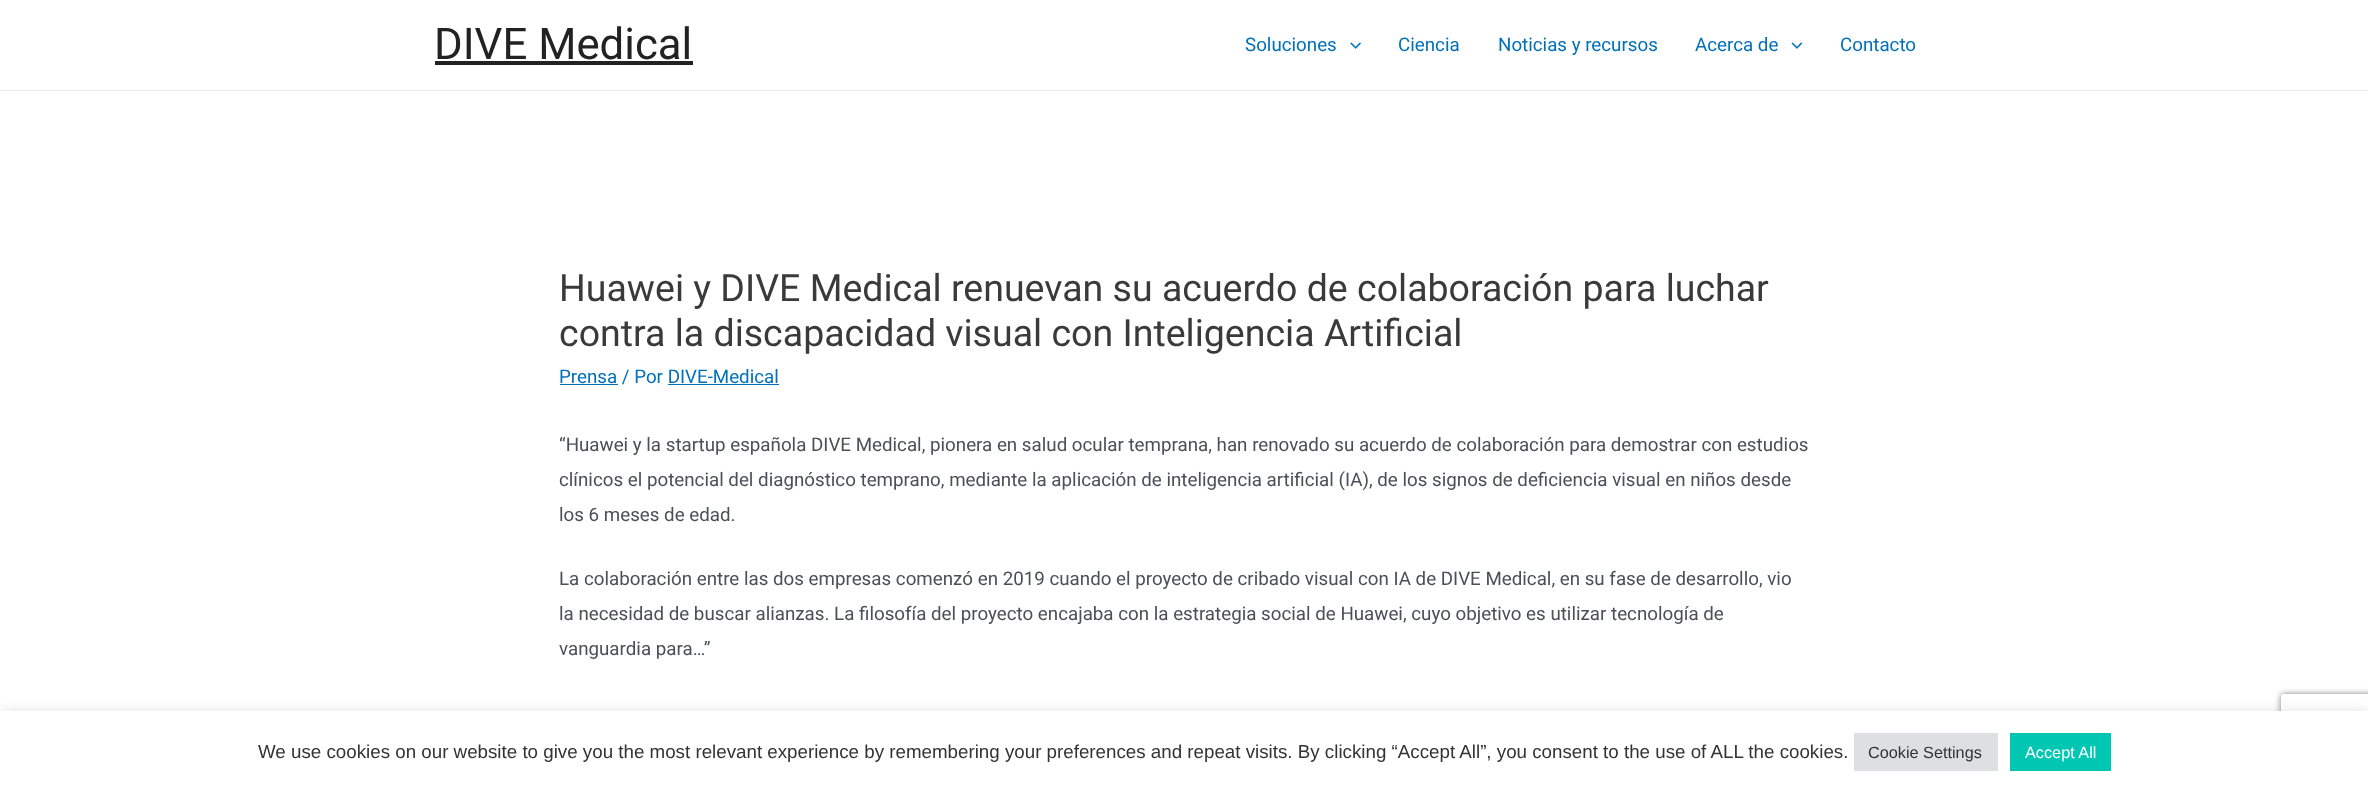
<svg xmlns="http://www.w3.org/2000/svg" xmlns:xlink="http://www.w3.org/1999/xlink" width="2368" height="786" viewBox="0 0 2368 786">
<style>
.cls-1{font:43.75px Roboto;fill:#222222}
.cls-2{font:18.75px Roboto;fill:#0170b9}
.cls-3{font:37.5px Roboto;fill:#3a3a3a}
.cls-4{font:18.75px Roboto;fill:#4b4f58}
.cls-5{font:18.75px Liberation Sans;fill:#333333}
.cls-6{font:16.25px Liberation Sans;fill:#333333}
.cls-7{font:16.25px Liberation Sans;fill:#ffffff}
</style>
<defs>
<clipPath id="clip1"><path d="M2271 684H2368V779H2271ZM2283.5 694H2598.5C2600 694 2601 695 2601 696.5V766.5C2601 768 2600 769 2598.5 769H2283.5C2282 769 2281 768 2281 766.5V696.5C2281 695 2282 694 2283.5 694Z" clip-rule="evenodd"/></clipPath>
</defs>
<rect width="100%" height="100%" fill="#ffffff"/>
<rect fill="#eaeaea" x="0" y="90" width="2368" height="1"/>
<rect fill="#222222" x="435" y="61" width="258" height="4"/>
<image xlink:href="image0.png" x="1350" y="42" width="11" height="7"/>
<image xlink:href="image1.png" x="1791" y="42" width="12" height="7"/>
<rect fill="#0170b9" x="560" y="384" width="58" height="1"/>
<rect fill="#0170b9" x="668" y="384" width="111" height="1"/>
<rect fill="#acabab" fill-opacity="0.3" filter="blur(6px)" x="0" y="710" width="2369" height="75"/>
<g clip-path="url(#clip1)">
<rect fill="#808080" filter="blur(3px)" x="2281" y="694" width="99" height="75" rx="2.5"/>
</g>
<rect fill="#ffffff" x="0" y="711" width="2368" height="75"/>
<rect fill="#dedfe0" x="1854" y="733" width="144" height="38"/>
<rect fill="#00c7b1" x="2010" y="733" width="101" height="38"/>
<text class="cls-1" x="434" y="59">DIVE Medical</text>
<text class="cls-2" x="1245" y="51">Soluciones</text>
<text class="cls-2" x="1398" y="51">Ciencia</text>
<text class="cls-2" x="1498" y="51">Noticias y recursos</text>
<text class="cls-2" x="1695" y="51">Acerca de</text>
<text class="cls-2" x="1840" y="51">Contacto</text>
<text class="cls-3"><tspan x="559" y="301">Huawei y DIVE Medical renuevan su acuerdo de colaboración para luchar</tspan><tspan x="559" y="346">contra la discapacidad visual con Inteligencia Artificial</tspan></text>
<text class="cls-2" x="559" y="383">Prensa / Por DIVE-Medical</text>
<text class="cls-4"><tspan x="559" y="451">“Huawei y la startup española DIVE Medical, pionera en salud ocular temprana, han renovado su acuerdo de colaboración para demostrar con estudios</tspan><tspan x="559" y="486">clínicos el potencial del diagnóstico temprano, mediante la aplicación de inteligencia artificial (IA), de los signos de deficiencia visual en niños desde</tspan><tspan x="559" y="521">los 6 meses de edad.</tspan></text>
<text class="cls-4"><tspan x="559" y="585">La colaboración entre las dos empresas comenzó en 2019 cuando el proyecto de cribado visual con IA de DIVE Medical, en su fase de desarrollo, vio</tspan><tspan x="559" y="620">la necesidad de buscar alianzas. La filosofía del proyecto encajaba con la estrategia social de Huawei, cuyo objetivo es utilizar tecnología de</tspan><tspan x="559" y="655">vanguardia para…”</tspan></text>
<text class="cls-5" x="258" y="758">We use cookies on our website to give you the most relevant experience by remembering your preferences and repeat visits. By clicking “Accept All”, you consent to the use of ALL the cookies.</text>
<text class="cls-6" x="1868" y="758">Cookie Settings</text>
<text class="cls-7" x="2025" y="758">Accept All</text>
</svg>
